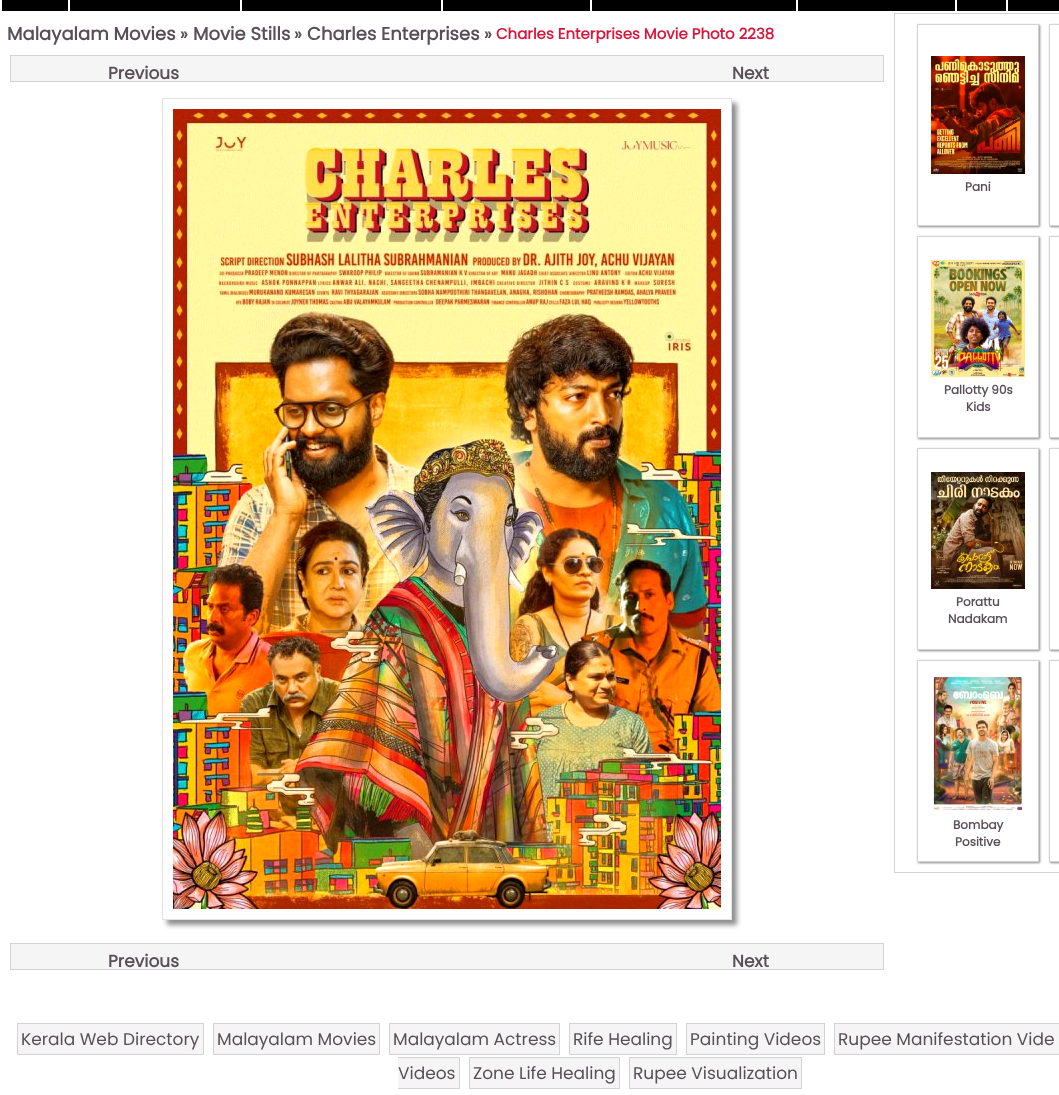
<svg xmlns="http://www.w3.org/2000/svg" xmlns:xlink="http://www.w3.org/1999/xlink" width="1059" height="1095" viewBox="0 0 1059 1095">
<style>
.cls-1{font:bold 18px Poppins;fill:#575057}
.cls-2{font:bold 17px Poppins;fill:#575057}
.cls-3{font:bold 15px Poppins;fill:#dc143c}
.cls-4{font:bold 12px Poppins;fill:#575057}
.cls-5{font:17px Poppins;fill:#575057}
</style>
<defs>
<clipPath id="clip1"><path d="M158 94H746V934H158ZM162 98H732V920H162Z" clip-rule="evenodd"/></clipPath>
<clipPath id="clip2"><path d="M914 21H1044V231H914ZM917 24H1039V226H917Z" clip-rule="evenodd"/></clipPath>
<clipPath id="clip3"><path d="M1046 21H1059V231H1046ZM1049 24H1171V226H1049Z" clip-rule="evenodd"/></clipPath>
<clipPath id="clip4"><path d="M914 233H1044V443H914ZM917 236H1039V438H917Z" clip-rule="evenodd"/></clipPath>
<clipPath id="clip5"><path d="M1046 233H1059V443H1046ZM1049 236H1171V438H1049Z" clip-rule="evenodd"/></clipPath>
<clipPath id="clip6"><path d="M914 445H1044V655H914ZM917 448H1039V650H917Z" clip-rule="evenodd"/></clipPath>
<clipPath id="clip7"><path d="M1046 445H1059V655H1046ZM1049 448H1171V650H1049Z" clip-rule="evenodd"/></clipPath>
<clipPath id="clip8"><path d="M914 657H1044V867H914ZM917 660H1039V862H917Z" clip-rule="evenodd"/></clipPath>
<clipPath id="clip9"><path d="M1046 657H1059V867H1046ZM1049 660H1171V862H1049Z" clip-rule="evenodd"/></clipPath>
</defs>
<rect width="100%" height="100%" fill="#ffffff"/>
<rect fill="#000000" x="2" y="0" width="66" height="11"/>
<rect fill="#000000" x="70" y="0" width="170" height="11"/>
<rect fill="#000000" x="242" y="0" width="199" height="11"/>
<rect fill="#000000" x="443" y="0" width="147" height="11"/>
<rect fill="#000000" x="592" y="0" width="204" height="11"/>
<rect fill="#000000" x="798" y="0" width="157" height="11"/>
<rect fill="#000000" x="957" y="0" width="49" height="11"/>
<rect fill="#000000" x="1008" y="0" width="51" height="11"/>
<rect fill="#f5f5f5" stroke="#d3d3d3" x="10.5" y="55.5" width="873" height="26"/>
<g clip-path="url(#clip1)">
<rect fill="#909090" filter="blur(2.5px)" x="167" y="103" width="570" height="822"/>
</g>
<rect fill="none" stroke="#e2e2e2" x="162.5" y="98.5" width="569" height="821"/>
<image xlink:href="image0.png" x="173" y="109" width="548" height="800"/>
<rect fill="#f5f5f5" stroke="#d3d3d3" x="10.5" y="943.5" width="873" height="26"/>
<rect fill="none" stroke="#d3d3d3" x="894.5" y="13.5" width="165" height="859"/>
<g clip-path="url(#clip2)">
<rect fill="#888888" filter="blur(1px)" x="918" y="25" width="122" height="202"/>
</g>
<rect fill="none" stroke="#d3d3d3" x="917.5" y="24.5" width="121" height="201"/>
<image xlink:href="image1.png" x="931" y="56" width="94" height="118"/>
<g clip-path="url(#clip3)">
<rect fill="#888888" filter="blur(1px)" x="1050" y="25" width="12" height="202"/>
</g>
<rect fill="none" stroke="#d3d3d3" x="1049.5" y="24.5" width="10" height="201"/>
<g clip-path="url(#clip4)">
<rect fill="#888888" filter="blur(1px)" x="918" y="237" width="122" height="202"/>
</g>
<rect fill="none" stroke="#d3d3d3" x="917.5" y="236.5" width="121" height="201"/>
<image xlink:href="image2.png" x="931" y="260" width="94" height="117"/>
<g clip-path="url(#clip5)">
<rect fill="#888888" filter="blur(1px)" x="1050" y="237" width="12" height="202"/>
</g>
<rect fill="none" stroke="#d3d3d3" x="1049.5" y="236.5" width="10" height="201"/>
<g clip-path="url(#clip6)">
<rect fill="#888888" filter="blur(1px)" x="918" y="449" width="122" height="202"/>
</g>
<rect fill="none" stroke="#d3d3d3" x="917.5" y="448.5" width="121" height="201"/>
<image xlink:href="image3.png" x="931" y="472" width="94" height="117"/>
<g clip-path="url(#clip7)">
<rect fill="#888888" filter="blur(1px)" x="1050" y="449" width="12" height="202"/>
</g>
<rect fill="none" stroke="#d3d3d3" x="1049.5" y="448.5" width="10" height="201"/>
<g clip-path="url(#clip8)">
<rect fill="#888888" filter="blur(1px)" x="918" y="661" width="122" height="202"/>
</g>
<rect fill="none" stroke="#d3d3d3" x="917.5" y="660.5" width="121" height="201"/>
<image xlink:href="image4.png" x="933" y="676" width="90" height="136"/>
<g clip-path="url(#clip9)">
<rect fill="#888888" filter="blur(1px)" x="1050" y="661" width="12" height="202"/>
</g>
<rect fill="none" stroke="#d3d3d3" x="1049.5" y="660.5" width="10" height="201"/>
<rect fill="#f5f5f5" stroke="#d3d3d3" x="17.5" y="1023.5" width="186" height="31"/>
<rect fill="#f5f5f5" stroke="#d3d3d3" x="213.5" y="1023.5" width="166" height="31"/>
<rect fill="#f5f5f5" stroke="#d3d3d3" x="389.5" y="1023.5" width="170" height="31"/>
<rect fill="#f5f5f5" stroke="#d3d3d3" x="569.5" y="1023.5" width="107" height="31"/>
<rect fill="#f5f5f5" stroke="#d3d3d3" x="686.5" y="1023.5" width="138" height="31"/>
<rect fill="#f5f5f5" stroke="#d3d3d3" x="834.5" y="1023.5" width="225" height="31"/>
<rect fill="#f5f5f5" x="398" y="1058" width="61" height="30"/>
<rect fill="#d3d3d3" x="398" y="1057" width="62" height="1"/>
<rect fill="#d3d3d3" x="459" y="1057" width="1" height="32"/>
<rect fill="#d3d3d3" x="398" y="1088" width="62" height="1"/>
<rect fill="#f5f5f5" stroke="#d3d3d3" x="469.5" y="1057.5" width="150" height="31"/>
<rect fill="#f5f5f5" stroke="#d3d3d3" x="629.5" y="1057.5" width="172" height="31"/>
<text class="cls-1" x="7" y="40">Malayalam Movies</text>
<text class="cls-2" x="180" y="40">»</text>
<text class="cls-1" x="193" y="40">Movie Stills</text>
<text class="cls-2" x="294" y="40">»</text>
<text class="cls-1" x="307" y="40">Charles Enterprises</text>
<text class="cls-2" x="484" y="40">»</text>
<text class="cls-3" x="496" y="39">Charles Enterprises Movie Photo 2238</text>
<text class="cls-2" x="108" y="79">Previous</text>
<text class="cls-2" x="732" y="79">Next</text>
<text class="cls-2" x="108" y="967">Previous</text>
<text class="cls-2" x="732" y="967">Next</text>
<text class="cls-4" x="965" y="191">Pani</text>
<text class="cls-4" x="944" y="394">Pallotty 90s</text>
<text class="cls-4" x="966" y="411">Kids</text>
<text class="cls-4" x="956" y="606">Porattu</text>
<text class="cls-4" x="948" y="623">Nadakam</text>
<text class="cls-4" x="953" y="829">Bombay</text>
<text class="cls-4" x="955" y="846">Positive</text>
<text class="cls-5" x="21" y="1045">Kerala Web Directory</text>
<text class="cls-5" x="217" y="1045">Malayalam Movies</text>
<text class="cls-5" x="393" y="1045">Malayalam Actress</text>
<text class="cls-5" x="573" y="1045">Rife Healing</text>
<text class="cls-5" x="690" y="1045">Painting Videos</text>
<text class="cls-5" x="838" y="1045">Rupee Manifestation Vide</text>
<text class="cls-5" x="398" y="1079">Videos</text>
<text class="cls-5" x="473" y="1079">Zone Life Healing</text>
<text class="cls-5" x="633" y="1079">Rupee Visualization</text>
</svg>
